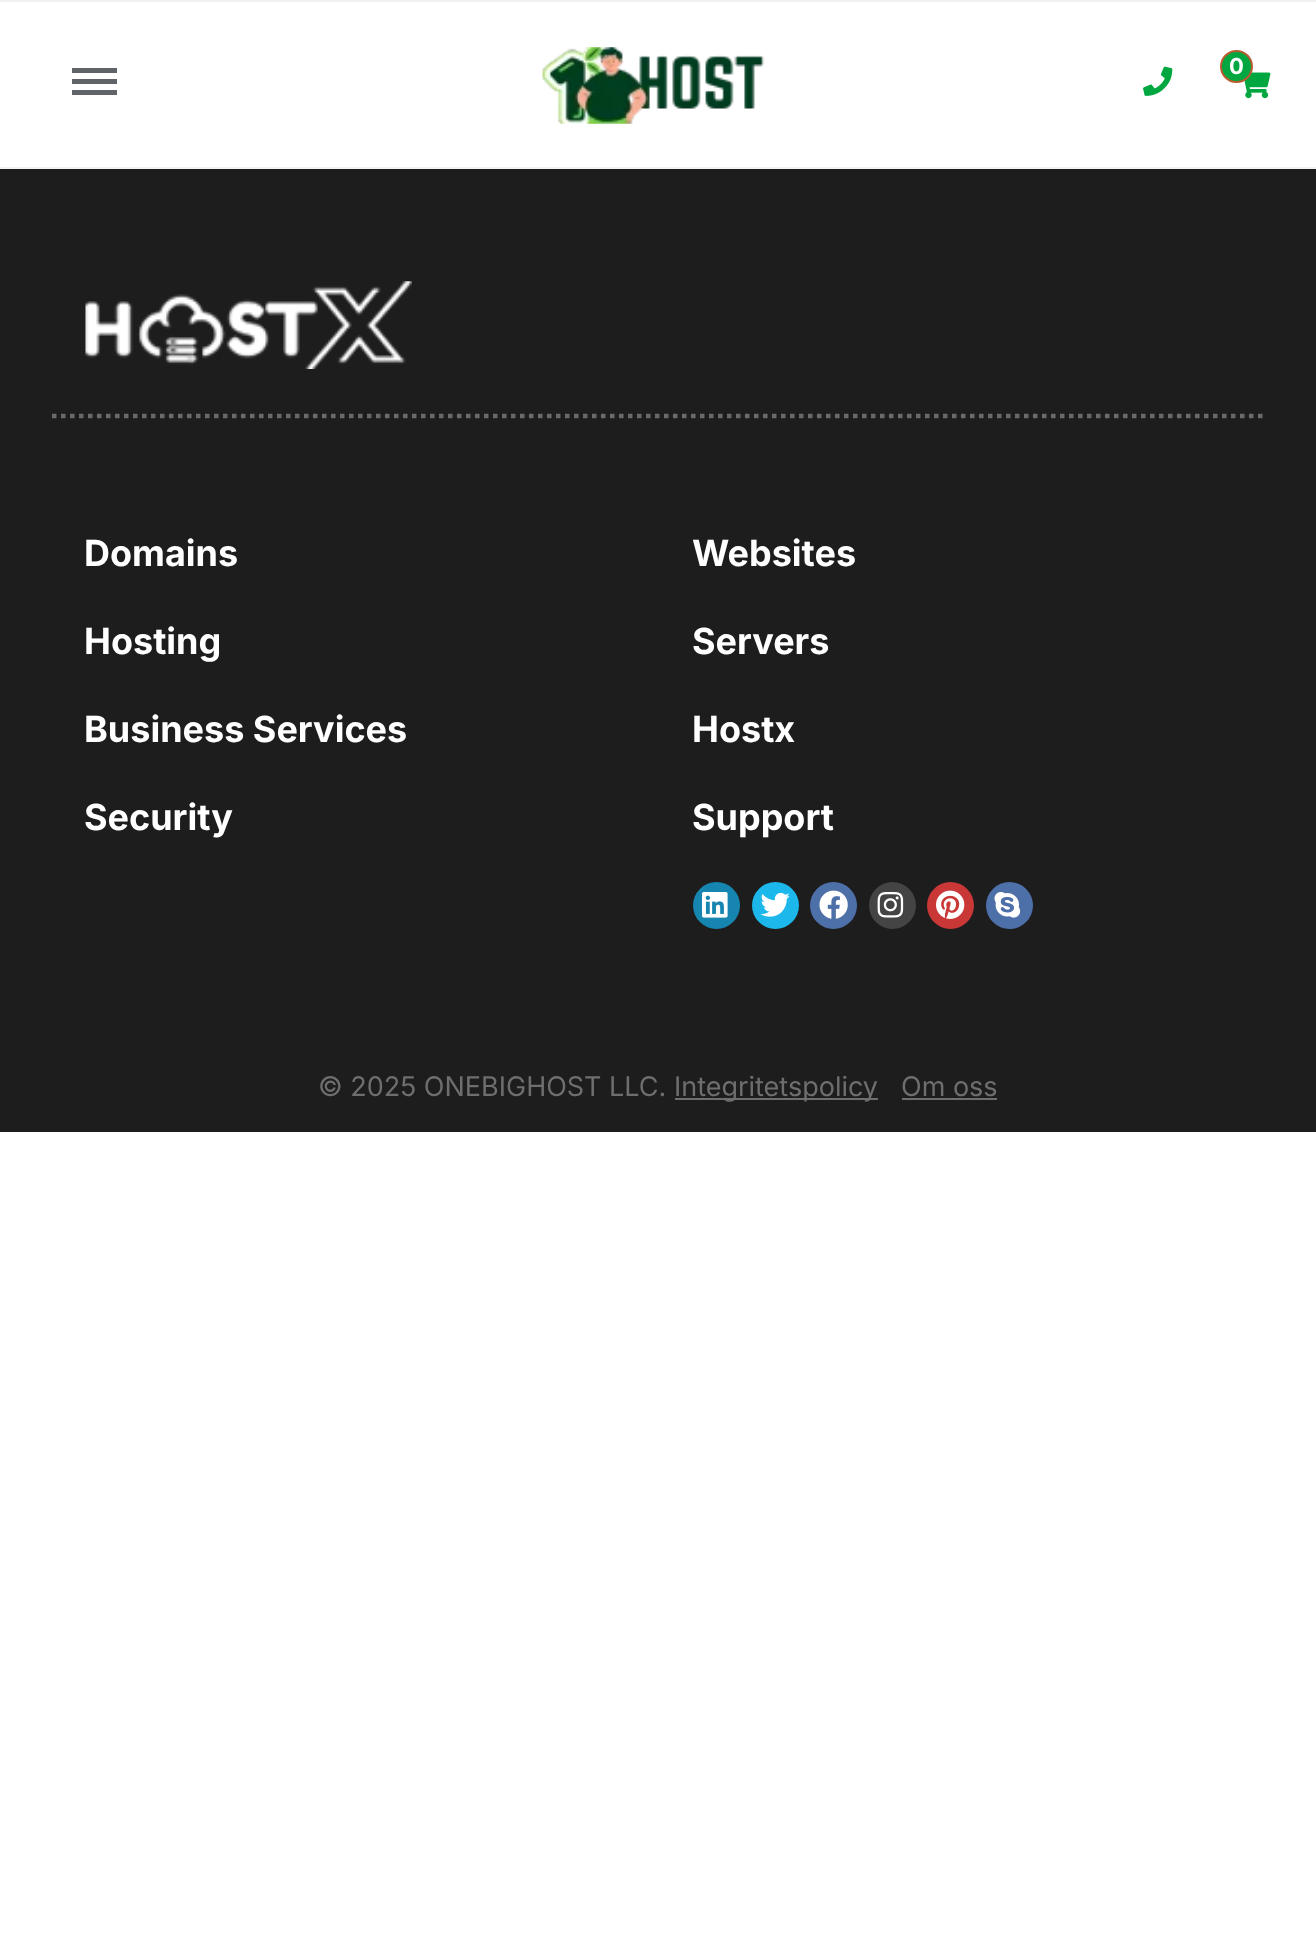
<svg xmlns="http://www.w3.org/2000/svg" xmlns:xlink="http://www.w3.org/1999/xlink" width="1316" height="1933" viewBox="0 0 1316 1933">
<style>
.cls-1{font:bold 22px Inter;fill:#ffffff}
.cls-2{font:bold 36px Inter;fill:#ffffff}
.cls-3{font:27px Inter;fill:#6e6e6e}
</style>
<rect width="100%" height="100%" fill="#ffffff"/>
<rect fill="#f1f1f1" x="0" y="0" width="1316" height="2"/>
<rect fill="#f1f1f1" x="0" y="167" width="1316" height="2"/>
<image xlink:href="image0.png" x="542" y="47" width="223" height="77"/>
<image xlink:href="image1.png" x="1143" y="66" width="30" height="30"/>
<image xlink:href="image2.png" x="1244" y="72" width="27" height="27"/>
<circle fill="#00a63f" stroke="#b85c31" stroke-width="2" cx="1236.5" cy="66.5" r="15.5"/>
<rect fill="#606367" x="72" y="68" width="45" height="5"/>
<rect fill="#606367" x="72" y="79" width="45" height="5"/>
<rect fill="#606367" x="72" y="90" width="45" height="5"/>
<rect fill="#1d1d1d" x="0" y="169" width="1316" height="963"/>
<path fill="none" stroke="#6a6a6a" stroke-width="4.5" stroke-dasharray="4.5 4.5" d="M52 416H1267"/>
<image xlink:href="image3.png" x="85" y="281" width="327" height="88"/>
<circle fill="#1686b0" cx="716.5" cy="905.5" r="23.5"/>
<image xlink:href="image4.png" x="702" y="892" width="26" height="26"/>
<circle fill="#1cb7eb" cx="775.5" cy="905.5" r="23.5"/>
<image xlink:href="image5.png" x="760" y="892" width="30" height="25"/>
<circle fill="#4d70a8" cx="833.5" cy="905.5" r="23.5"/>
<image xlink:href="image6.png" x="819" y="890" width="29" height="29"/>
<circle fill="#444444" cx="892.5" cy="905.5" r="23.5"/>
<image xlink:href="image7.png" x="877" y="892" width="27" height="26"/>
<circle fill="#ca3737" cx="950.5" cy="905.5" r="23.5"/>
<image xlink:href="image8.png" x="936" y="890" width="29" height="29"/>
<circle fill="#4d70a8" cx="1009.5" cy="905.5" r="23.5"/>
<image xlink:href="image9.png" x="994" y="892" width="27" height="26"/>
<rect fill="#6e6e6e" x="675" y="1098" width="203" height="2"/>
<rect fill="#6e6e6e" x="902" y="1098" width="95" height="2"/>
<text class="cls-1" x="1229" y="74">0</text>
<text class="cls-2" x="84" y="566">Domains</text>
<text class="cls-2" x="84" y="654">Hosting</text>
<text class="cls-2" x="692" y="566">Websites</text>
<text class="cls-2" x="692" y="654">Servers</text>
<text class="cls-2" x="84" y="742">Business Services</text>
<text class="cls-2" x="84" y="830">Security</text>
<text class="cls-2" x="692" y="742">Hostx</text>
<text class="cls-2" x="692" y="830">Support</text>
<text class="cls-3" x="318" y="1096">© 2025 ONEBIGHOST LLC.</text>
<text class="cls-3" x="674" y="1096">Integritetspolicy</text>
<text class="cls-3" x="901" y="1096">Om oss</text>
</svg>
